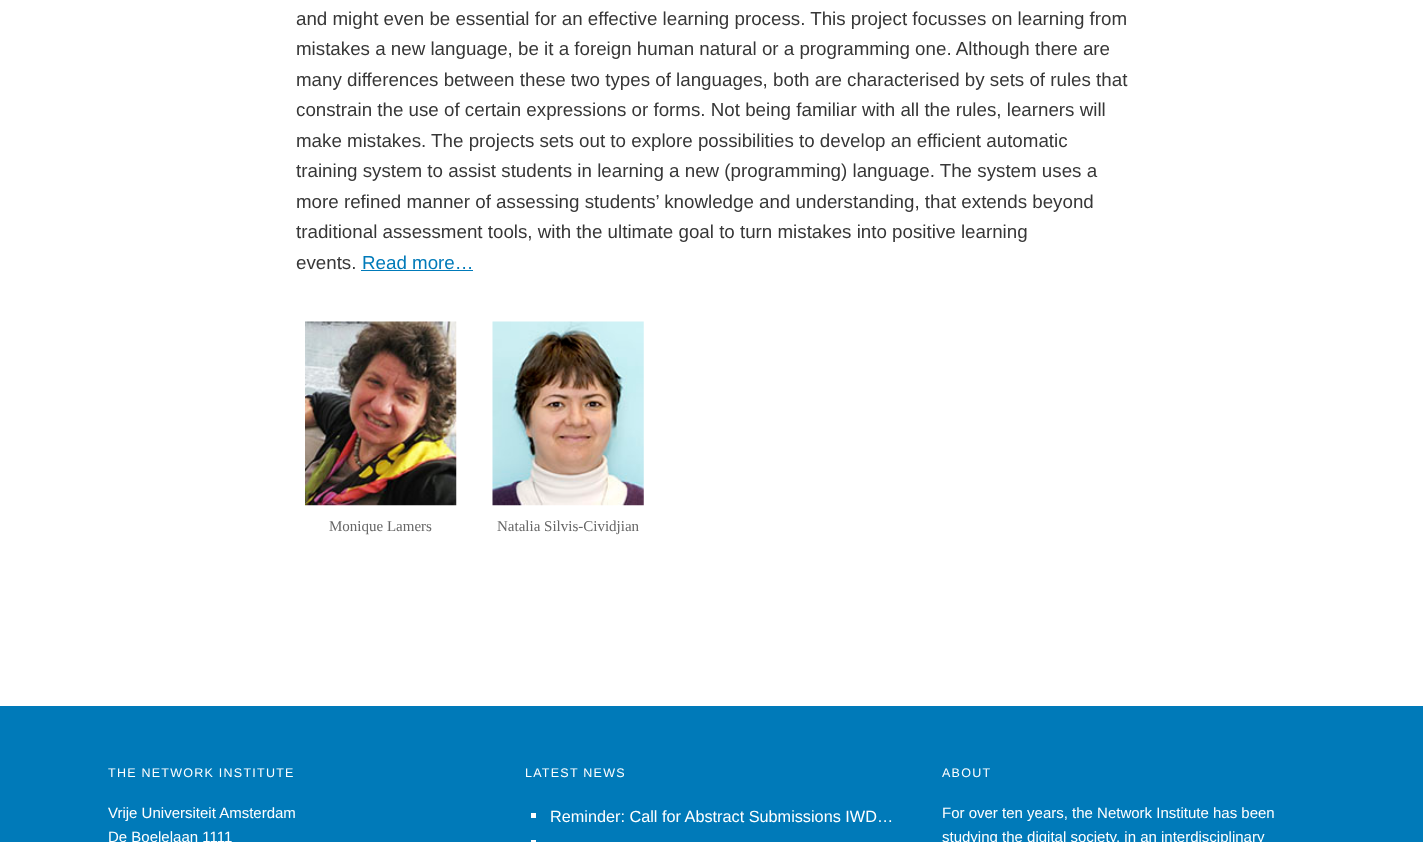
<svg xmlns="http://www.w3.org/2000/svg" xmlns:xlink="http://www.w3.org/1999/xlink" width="1423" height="842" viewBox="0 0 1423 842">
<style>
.cls-1{font:18.75px Liberation Sans;fill:#373737}
.cls-2{font:18.75px Liberation Sans;fill:#007ab9}
.cls-3{font:15px Liberation Serif;fill:#666666}
.cls-4{font:12.5px Liberation Sans;letter-spacing:1.25px;fill:#ffffff}
.cls-5{font:15px Liberation Sans;fill:#ffffff}
.cls-6{font:16.25px Liberation Sans;fill:#ffffff}
</style>
<rect width="100%" height="100%" fill="#ffffff"/>
<rect fill="#007ab9" x="361" y="270" width="112" height="1"/>
<image xlink:href="image0.png" x="305" y="321" width="152" height="185"/>
<image xlink:href="image1.png" x="492" y="321" width="152" height="185"/>
<rect fill="#007ab9" x="0" y="706" width="1423" height="136"/>
<rect fill="#ffffff" x="531" y="813" width="5" height="5"/>
<rect fill="#ffffff" x="531" y="840" width="5" height="2"/>
<text class="cls-1"><tspan x="296" y="25">and might even be essential for an effective learning process. This project focusses on learning from</tspan><tspan x="296" y="55">mistakes a new language, be it a foreign human natural or a programming one. Although there are</tspan><tspan x="296" y="86">many differences between these two types of languages, both are characterised by sets of rules that</tspan><tspan x="296" y="116">constrain the use of certain expressions or forms. Not being familiar with all the rules, learners will</tspan><tspan x="296" y="147">make mistakes. The projects sets out to explore possibilities to develop an efficient automatic</tspan><tspan x="296" y="177">training system to assist students in learning a new (programming) language. The system uses a</tspan><tspan x="296" y="208">more refined manner of assessing students’ knowledge and understanding, that extends beyond</tspan><tspan x="296" y="238">traditional assessment tools, with the ultimate goal to turn mistakes into positive learning</tspan><tspan x="296" y="269">events.</tspan></text>
<text class="cls-2" x="362" y="269">Read more…</text>
<text class="cls-3" x="329" y="531">Monique Lamers</text>
<text class="cls-3" x="497" y="531">Natalia Silvis-Cividjian</text>
<text class="cls-4" x="108" y="777">THE NETWORK INSTITUTE</text>
<text class="cls-5"><tspan x="108" y="818">Vrije Universiteit Amsterdam</tspan><tspan x="108" y="842">De Boelelaan 1111</tspan></text>
<text class="cls-4" x="525" y="777">LATEST NEWS</text>
<text class="cls-6" x="550" y="822">Reminder: Call for Abstract Submissions IWD…</text>
<text class="cls-4" x="942" y="777">ABOUT</text>
<text class="cls-5"><tspan x="942" y="818">For over ten years, the Network Institute has been</tspan><tspan x="942" y="842">studying the digital society, in an interdisciplinary</tspan></text>
</svg>
